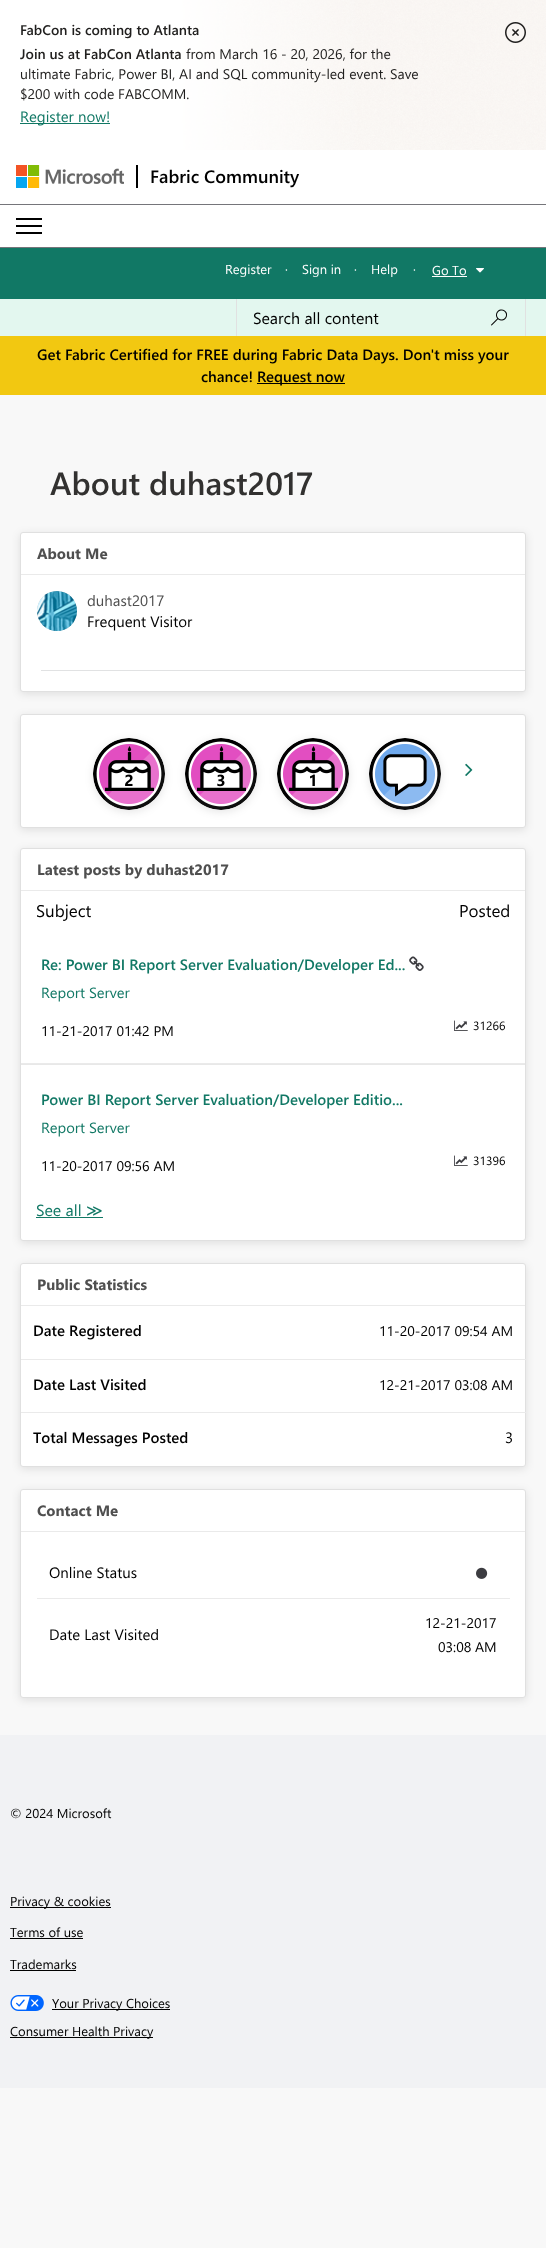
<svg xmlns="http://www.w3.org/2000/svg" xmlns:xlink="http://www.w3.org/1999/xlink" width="546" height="2248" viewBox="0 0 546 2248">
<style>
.cls-1{font:600 14px Segoe UI;fill:#201f1e}
.cls-2{font:600 14px 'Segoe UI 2';fill:#201f1e}
.cls-3{font:14px Segoe UI;fill:#201f1e}
.cls-4{font:15px Segoe UI;fill:#117865}
.cls-5{font:600 18px 'Segoe UI 2';fill:#000000}
.cls-6{font:13px Segoe UI;fill:#ffffff}
.cls-7{font:16px Segoe UI;fill:#000000}
.cls-8{font:600 15px Segoe UI;fill:#000000}
.cls-9{font:600 32px Segoe UI;fill:#323130}
.cls-10{font:bold 15px Segoe UI;fill:#4f4f4f}
.cls-11{font:15px Segoe UI;fill:#4f4f4f}
.cls-12{font:15px Segoe UI;fill:#000000}
.cls-13{font:17px Segoe UI;fill:#000000}
.cls-14{font:600 15px Segoe UI;fill:#117865}
.cls-15{font:14.75px Segoe UI;fill:#117865}
.cls-16{font:14px Segoe UI;fill:#000000}
.cls-17{font:12px Segoe UI;fill:#000000}
.cls-18{font:16px Segoe UI;fill:#117865}
.cls-19{font:16px DejaVu Sans;fill:#117865}
.cls-20{font:600 15px 'Segoe UI 2';fill:#000000}
.cls-21{font:13px Segoe UI;fill:#000000}
</style>
<rect width="100%" height="100%" fill="#f8f8f8"/>
<image xlink:href="image0.png" x="0" y="0" width="546" height="150"/>
<rect fill="#117865" x="20" y="123" width="90" height="1"/>
<image xlink:href="image1.png" x="505" y="22" width="21" height="21"/>
<rect fill="#ffffff" x="0" y="150" width="546" height="97"/>
<image xlink:href="image2.png" x="16" y="165" width="108" height="23"/>
<rect fill="#000000" x="136" y="165" width="2" height="23"/>
<rect fill="#75757a" x="0" y="204" width="546" height="1"/>
<rect fill="#75757a" x="0" y="247" width="546" height="1"/>
<rect fill="#000000" x="16" y="218" width="26" height="2"/>
<rect fill="#000000" x="16" y="225" width="26" height="2"/>
<rect fill="#000000" x="16" y="232" width="26" height="2"/>
<rect fill="#117865" x="0" y="248" width="546" height="51"/>
<rect fill="#ffffff" x="432" y="276" width="35" height="1"/>
<image xlink:href="image3.png" x="476" y="268" width="8" height="5"/>
<rect fill="#e3f7ef" x="0" y="299" width="546" height="37"/>
<rect fill="#e1e1e1" x="525" y="299" width="1" height="37"/>
<rect fill="#e1e1e1" x="236" y="299" width="1" height="37"/>
<image xlink:href="image4.png" x="491" y="309" width="16" height="17"/>
<rect fill="#f2c811" x="0" y="336" width="546" height="59"/>
<rect fill="#000000" x="257" y="383" width="88" height="1"/>
<rect fill="#000000" fill-opacity="0.1" filter="blur(4px)" x="20" y="534" width="506" height="160" rx="3"/>
<rect fill="#ffffff" stroke="#e0e0e0" x="20.5" y="532.5" width="505" height="159" rx="2.5"/>
<rect fill="#eaeaea" x="21" y="574" width="504" height="1"/>
<rect fill="#c4c4c4" filter="blur(0.5px)" x="37" y="591" width="40" height="40" rx="20"/>
<image xlink:href="image5.png" x="37" y="591" width="40" height="40"/>
<rect fill="#e1e2e3" x="41" y="670" width="484" height="1"/>
<rect fill="#000000" fill-opacity="0.1" filter="blur(4px)" x="20" y="716" width="506" height="114" rx="3"/>
<rect fill="#ffffff" stroke="#e0e0e0" x="20.5" y="714.5" width="505" height="113" rx="2.5"/>
<rect fill="#000000" fill-opacity="0.1" filter="blur(4px)" x="93" y="740" width="72" height="72" rx="36"/>
<image xlink:href="image6.png" x="93" y="738" width="72" height="72"/>
<rect fill="#000000" fill-opacity="0.1" filter="blur(4px)" x="185" y="740" width="72" height="72" rx="36"/>
<image xlink:href="image7.png" x="185" y="738" width="72" height="72"/>
<rect fill="#000000" fill-opacity="0.1" filter="blur(4px)" x="277" y="740" width="72" height="72" rx="36"/>
<image xlink:href="image8.png" x="277" y="738" width="72" height="72"/>
<rect fill="#000000" fill-opacity="0.1" filter="blur(4px)" x="369" y="740" width="72" height="72" rx="36"/>
<image xlink:href="image9.png" x="369" y="738" width="72" height="72"/>
<image xlink:href="image10.png" x="465" y="763" width="8" height="13"/>
<rect fill="#000000" fill-opacity="0.1" filter="blur(4px)" x="20" y="850" width="506" height="393" rx="3"/>
<rect fill="#ffffff" stroke="#e0e0e0" x="20.5" y="848.5" width="505" height="392" rx="2.5"/>
<rect fill="#eaeaea" x="21" y="890" width="504" height="1"/>
<rect fill="#eaeaea" x="21" y="1063" width="504" height="1"/>
<image xlink:href="image11.png" x="409" y="956" width="15" height="15"/>
<image xlink:href="image12.png" x="454" y="1020" width="14" height="11"/>
<rect fill="#e8e8e8" x="21" y="1064" width="504" height="1"/>
<image xlink:href="image12.png" x="454" y="1155" width="14" height="11"/>
<rect fill="#117865" x="36" y="1217" width="67" height="1"/>
<rect fill="#000000" fill-opacity="0.1" filter="blur(4px)" x="20" y="1265" width="506" height="204" rx="3"/>
<rect fill="#ffffff" stroke="#e0e0e0" x="20.5" y="1263.5" width="505" height="203" rx="2.5"/>
<rect fill="#eaeaea" x="21" y="1305" width="504" height="1"/>
<rect fill="#eaeaea" x="21" y="1359" width="505" height="1"/>
<rect fill="#eaeaea" x="21" y="1412" width="505" height="1"/>
<rect fill="#000000" fill-opacity="0.1" filter="blur(4px)" x="20" y="1491" width="506" height="209" rx="3"/>
<rect fill="#ffffff" stroke="#e0e0e0" x="20.5" y="1489.5" width="505" height="208" rx="2.5"/>
<rect fill="#eaeaea" x="21" y="1531" width="504" height="1"/>
<rect fill="#eaeaea" x="37" y="1598" width="473" height="1"/>
<image xlink:href="image13.png" x="476" y="1567" width="12" height="12"/>
<rect fill="#f1f2f4" x="0" y="1735" width="546" height="353"/>
<rect fill="#000000" x="10" y="1907" width="101" height="1"/>
<rect fill="#000000" x="10" y="1938" width="73" height="1"/>
<rect fill="#000000" x="10" y="1970" width="66" height="1"/>
<image xlink:href="image14.png" x="10" y="1995" width="34" height="16"/>
<rect fill="#000000" x="52" y="2009" width="118" height="1"/>
<rect fill="#000000" x="10" y="2037" width="143" height="1"/>
<text class="cls-1" x="20" y="35">FabCon is coming to Atlanta</text>
<text class="cls-2" x="20" y="59">Join us at FabCon Atlanta</text>
<text class="cls-3" x="186" y="59">from March 16 - 20, 2026, for the</text>
<text class="cls-3"><tspan x="20" y="79">ultimate Fabric, Power BI, AI and SQL community-led event. Save</tspan><tspan x="20" y="99">$200 with code FABCOMM.</tspan></text>
<text class="cls-4" x="20" y="122">Register now!</text>
<text class="cls-5" x="150" y="183">Fabric Community</text>
<text class="cls-6" x="225" y="274">Register</text>
<text class="cls-6" x="285" y="274">·</text>
<text class="cls-6" x="302" y="274">Sign in</text>
<text class="cls-6" x="354" y="274">·</text>
<text class="cls-6" x="371" y="274">Help</text>
<text class="cls-6" x="413" y="274">·</text>
<text class="cls-6" x="432" y="275">Go To</text>
<text class="cls-7" x="253" y="324">Search all content</text>
<text class="cls-8" x="37" y="360">Get Fabric Certified for FREE during Fabric Data Days. Don't miss your</text>
<text class="cls-8" x="201" y="382">chance!</text>
<text class="cls-8" x="257" y="382">Request now</text>
<text class="cls-9" x="50" y="495">About duhast2017</text>
<text class="cls-10" x="37" y="559">About Me</text>
<text class="cls-11" x="87" y="606">duhast2017</text>
<text class="cls-12" x="87" y="627">Frequent Visitor</text>
<text class="cls-10" x="37" y="875">Latest posts by duhast2017</text>
<text class="cls-13" x="36" y="917">Subject</text>
<text class="cls-13" x="459" y="917">Posted</text>
<text class="cls-14" x="41" y="970">Re: Power BI Report Server Evaluation/Developer Ed...</text>
<text class="cls-15" x="41" y="998">Report Server</text>
<text class="cls-16" x="41" y="1036">11-21-2017 01:42 PM</text>
<text class="cls-17" x="473" y="1030">31266</text>
<text class="cls-14" x="41" y="1105">Power BI Report Server Evaluation/Developer Editio...</text>
<text class="cls-15" x="41" y="1133">Report Server</text>
<text class="cls-16" x="41" y="1171">11-20-2017 09:56 AM</text>
<text class="cls-17" x="473" y="1165">31396</text>
<text class="cls-18" x="36" y="1216">See all</text>
<text class="cls-19" x="86" y="1216">≫</text>
<text class="cls-10" x="37" y="1290">Public Statistics</text>
<text class="cls-20" x="33" y="1336">Date Registered</text>
<text class="cls-16" x="379" y="1336">11-20-2017 09:54 AM</text>
<text class="cls-20" x="33" y="1390">Date Last Visited</text>
<text class="cls-16" x="379" y="1390">12-21-2017 03:08 AM</text>
<text class="cls-20" x="33" y="1443">Total Messages Posted</text>
<text class="cls-12" x="505" y="1443">3</text>
<text class="cls-10" x="37" y="1516">Contact Me</text>
<text class="cls-12" x="49" y="1578">Online Status</text>
<text class="cls-12" x="49" y="1640">Date Last Visited</text>
<text class="cls-16" x="425" y="1628">12-21-2017</text>
<text class="cls-16" x="438" y="1652">03:08 AM</text>
<text class="cls-21" x="10" y="1818">© 2024 Microsoft</text>
<text class="cls-21" x="10" y="1906">Privacy &amp; cookies</text>
<text class="cls-21" x="10" y="1937">Terms of use</text>
<text class="cls-21" x="10" y="1969">Trademarks</text>
<text class="cls-21" x="52" y="2008">Your Privacy Choices</text>
<text class="cls-21" x="10" y="2036">Consumer Health Privacy</text>
</svg>
